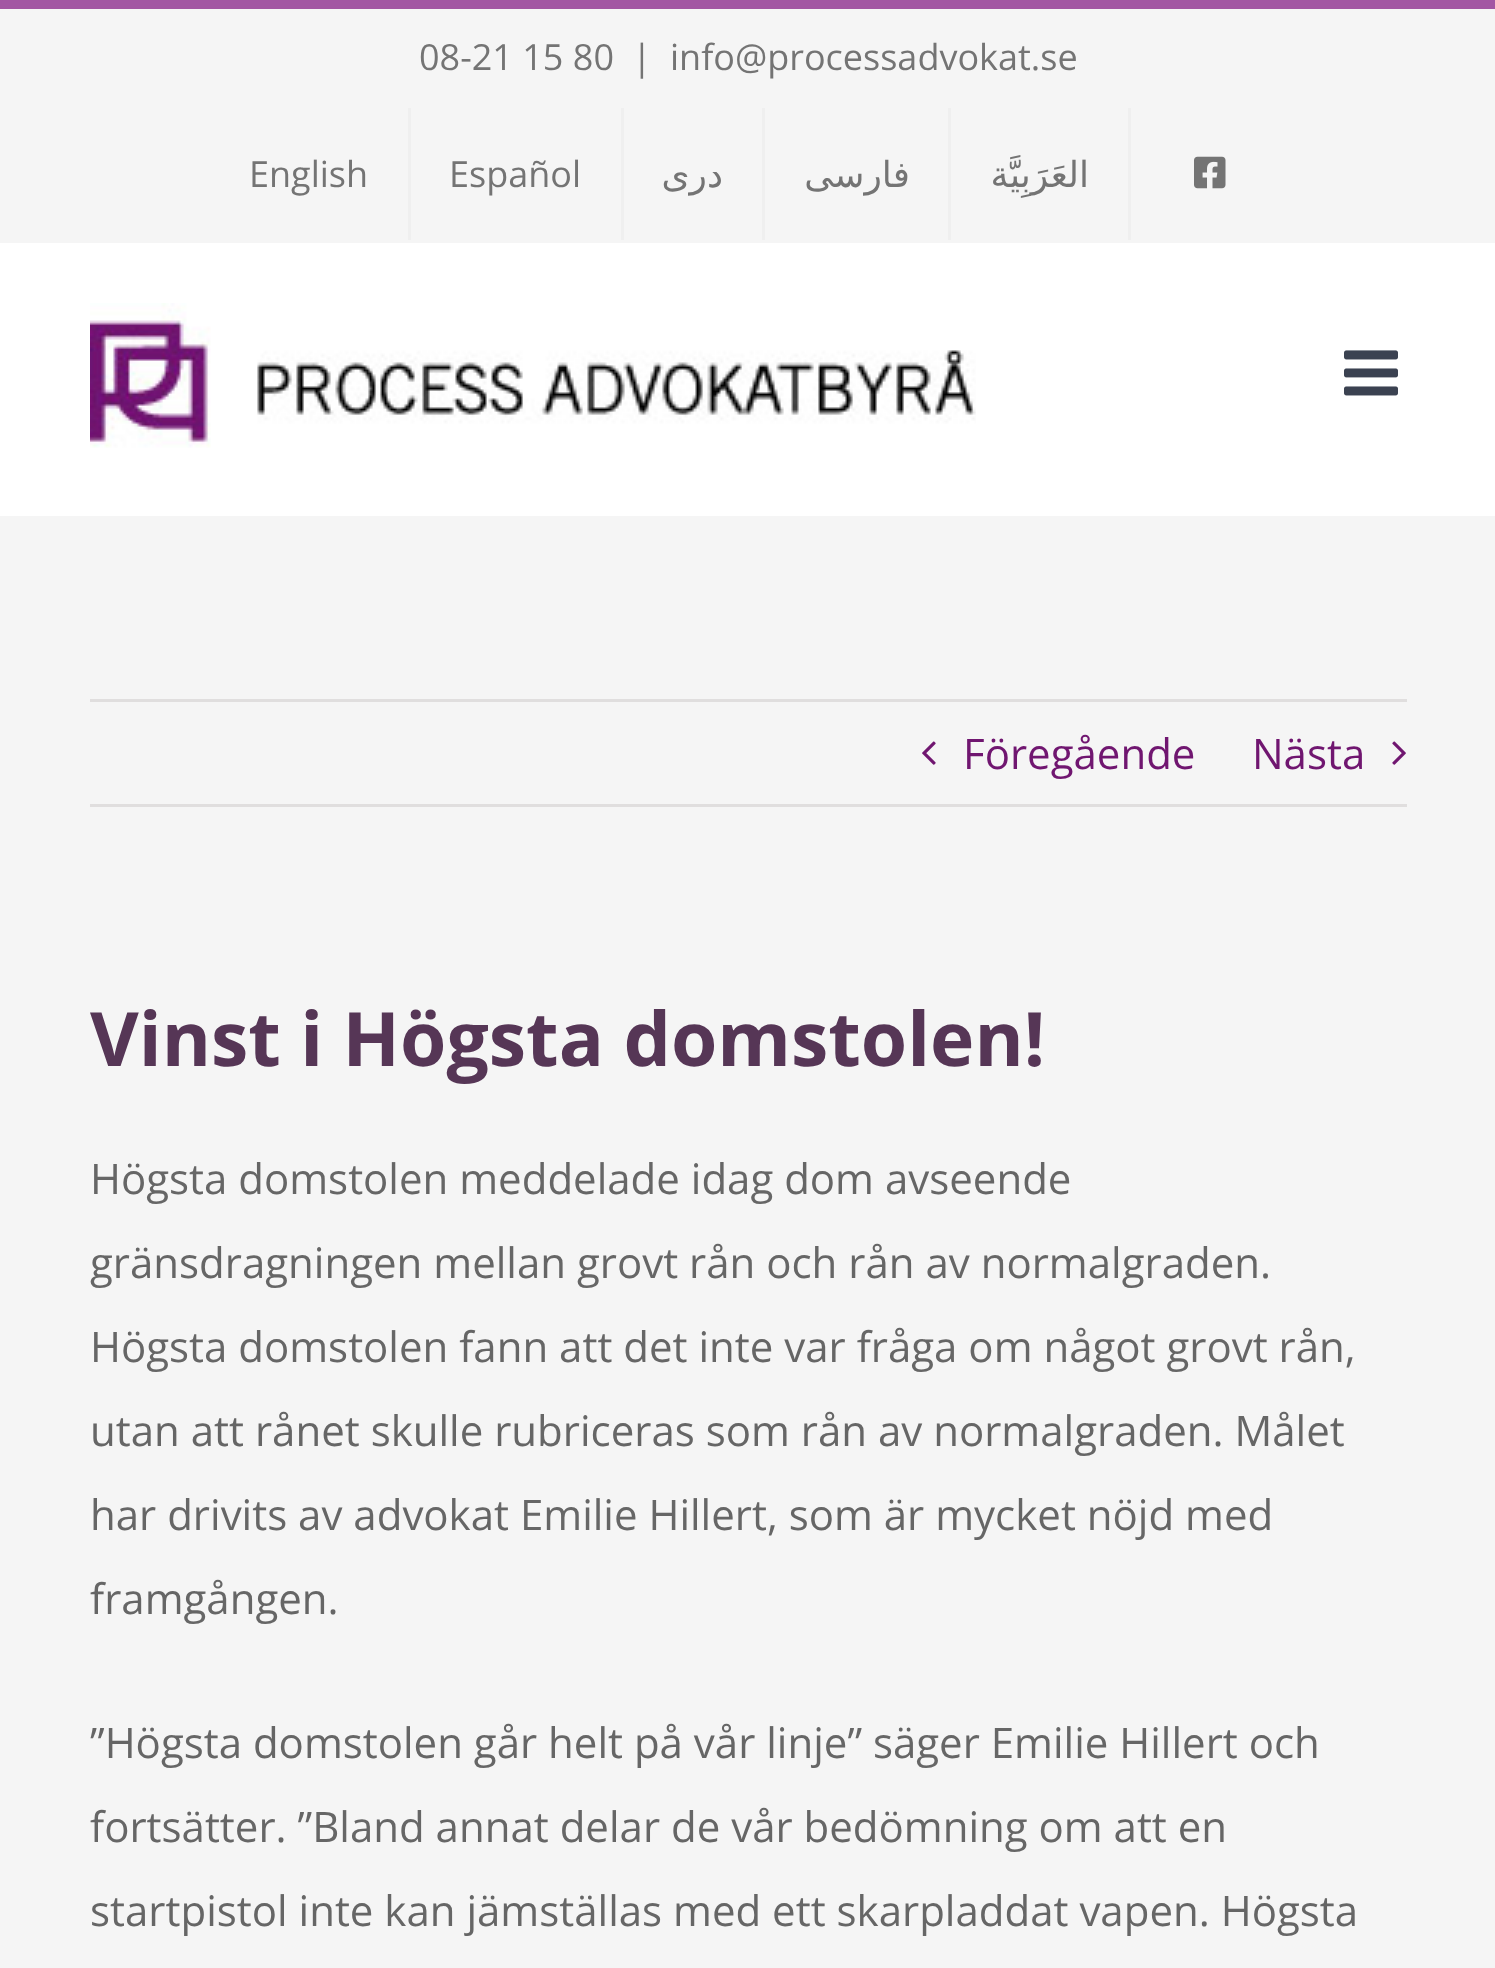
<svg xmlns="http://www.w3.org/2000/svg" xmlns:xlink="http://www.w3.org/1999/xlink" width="1495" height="1968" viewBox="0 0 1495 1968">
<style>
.cls-1{font:36px Open Sans;fill:#747474}
.cls-2{font:36px DejaVu Sans;direction:rtl;fill:#747474}
.cls-3{font:42px Open Sans;fill:#701670}
.cls-4{font:bold 75px Open Sans;fill:#563656}
.cls-5{font:42px Open Sans;fill:#666666}
</style>
<rect width="100%" height="100%" fill="#f5f5f5"/>
<rect fill="#ffffff" x="0" y="243" width="1495" height="273"/>
<rect fill="#a356a3" x="0" y="0" width="1495" height="9"/>
<rect fill="#efefef" x="408" y="108" width="3" height="132"/>
<rect fill="#efefef" x="621" y="108" width="3" height="132"/>
<rect fill="#efefef" x="762" y="108" width="3" height="132"/>
<rect fill="#efefef" x="948" y="108" width="3" height="132"/>
<rect fill="#efefef" x="1128" y="108" width="3" height="132"/>
<image xlink:href="image0.png" x="1194" y="156" width="32" height="33"/>
<image xlink:href="image1.png" x="90" y="303" width="886" height="145"/>
<image xlink:href="image2.png" x="1344" y="350" width="54" height="46"/>
<rect fill="#e0dede" x="90" y="699" width="1317" height="3"/>
<rect fill="#e0dede" x="90" y="804" width="1317" height="3"/>
<image xlink:href="image3.png" x="922" y="741" width="14" height="24"/>
<image xlink:href="image4.png" x="1392" y="741" width="14" height="24"/>
<text class="cls-1" x="419" y="70">08-21 15 80</text>
<text class="cls-1" x="632" y="70">|</text>
<text class="cls-1" x="670" y="70">info@processadvokat.se</text>
<text class="cls-1" x="249" y="187">English</text>
<text class="cls-1" x="449" y="187">Español</text>
<text class="cls-2" x="723" y="187">دری</text>
<text class="cls-2" x="910" y="187">فارسی</text>
<text class="cls-2" x="1089" y="187">العَرَبِيَّة</text>
<text class="cls-3" x="963" y="769">Föregående</text>
<text class="cls-3" x="1252" y="769">Nästa</text>
<text class="cls-4" x="90" y="1066">Vinst i Högsta domstolen!</text>
<text class="cls-5" x="90" y="1194">Högsta domstolen meddelade idag dom avseende</text>
<text class="cls-5" x="90" y="1278">gränsdragningen mellan grovt rån och rån av normalgraden.</text>
<text class="cls-5" x="90" y="1362">Högsta domstolen fann att det inte var fråga om något grovt rån,</text>
<text class="cls-5" x="90" y="1446">utan att rånet skulle rubriceras som rån av normalgraden. Målet</text>
<text class="cls-5" x="90" y="1530">har drivits av advokat Emilie Hillert, som är mycket nöjd med</text>
<text class="cls-5" x="90" y="1614">framgången.</text>
<text class="cls-5" x="90" y="1758">”Högsta domstolen går helt på vår linje” säger Emilie Hillert och</text>
<text class="cls-5" x="90" y="1842">fortsätter. ”Bland annat delar de vår bedömning om att en</text>
<text class="cls-5" x="90" y="1926">startpistol inte kan jämställas med ett skarpladdat vapen. Högsta</text>
</svg>
